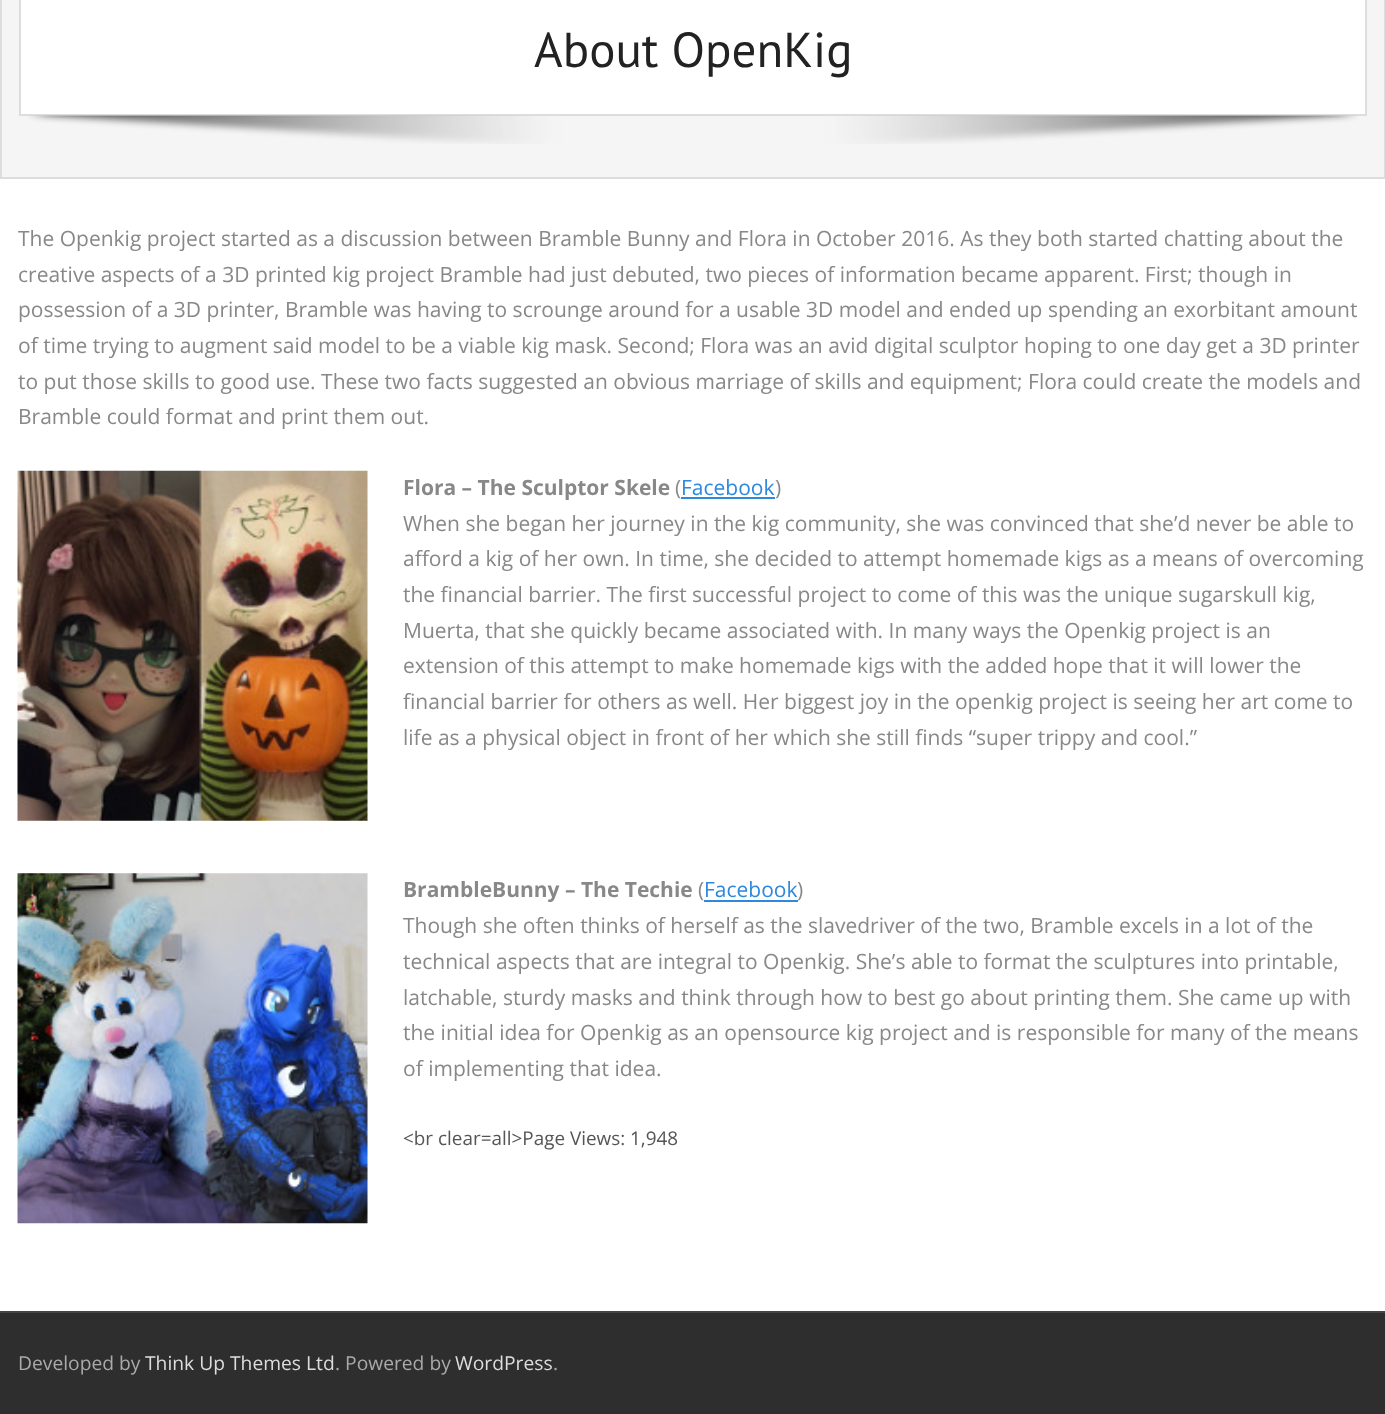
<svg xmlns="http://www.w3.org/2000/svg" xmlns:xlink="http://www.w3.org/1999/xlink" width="1385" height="1414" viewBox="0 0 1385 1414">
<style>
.cls-1{font:49px PT Sans;fill:#222222}
.cls-2{font:21px Open Sans;fill:#888888}
.cls-3{font:bold 21px Open Sans;fill:#888888}
.cls-4{font:21px Open Sans;fill:#2d88de}
.cls-5{font:18.9px Open Sans;fill:#555555}
.cls-6{font:19.25px Open Sans;fill:#aaaaaa}
.cls-7{font:19.25px Open Sans;fill:#dddddd}
</style>
<rect width="100%" height="100%" fill="#ffffff"/>
<rect fill="#f5f5f5" x="2" y="0" width="1382" height="177"/>
<rect fill="#dddddd" x="1384" y="0" width="1" height="179"/>
<rect fill="#dddddd" x="0" y="177" width="1385" height="2"/>
<rect fill="#dddddd" x="0" y="0" width="2" height="179"/>
<rect fill="#ffffff" stroke="#dddddd" stroke-width="2" x="20" y="-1" width="1346" height="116"/>
<image xlink:href="image0.png" x="28" y="115" width="1330" height="29"/>
<image xlink:href="image1.png" x="17" y="470" width="351" height="351"/>
<rect fill="#2d88de" x="681" y="497" width="94" height="2"/>
<image xlink:href="image2.png" x="17" y="873" width="351" height="351"/>
<rect fill="#2d88de" x="704" y="900" width="94" height="2"/>
<rect fill="#2e2e2e" x="0" y="1313" width="1385" height="101"/>
<rect fill="#444444" x="0" y="1311" width="1385" height="2"/>
<text class="cls-1" x="534" y="67">About OpenKig</text>
<text class="cls-2"><tspan x="18" y="246">The Openkig project started as a discussion between Bramble Bunny and Flora in October 2016. As they both started chatting about the</tspan><tspan x="18" y="282">creative aspects of a 3D printed kig project Bramble had just debuted, two pieces of information became apparent. First; though in</tspan><tspan x="18" y="317">possession of a 3D printer, Bramble was having to scrounge around for a usable 3D model and ended up spending an exorbitant amount</tspan><tspan x="18" y="353">of time trying to augment said model to be a viable kig mask. Second; Flora was an avid digital sculptor hoping to one day get a 3D printer</tspan><tspan x="18" y="389">to put those skills to good use. These two facts suggested an obvious marriage of skills and equipment; Flora could create the models and</tspan><tspan x="18" y="424">Bramble could format and print them out.</tspan></text>
<text class="cls-3" x="403" y="495">Flora – The Sculptor Skele</text>
<text class="cls-2" x="675" y="495">(</text>
<text class="cls-4" x="681" y="495">Facebook</text>
<text class="cls-2" x="775" y="495">)</text>
<text class="cls-2"><tspan x="403" y="531">When she began her journey in the kig community, she was convinced that she’d never be able to</tspan><tspan x="403" y="566">afford a kig of her own. In time, she decided to attempt homemade kigs as a means of overcoming</tspan><tspan x="403" y="602">the financial barrier. The first successful project to come of this was the unique sugarskull kig,</tspan><tspan x="403" y="638">Muerta, that she quickly became associated with. In many ways the Openkig project is an</tspan><tspan x="403" y="673">extension of this attempt to make homemade kigs with the added hope that it will lower the</tspan><tspan x="403" y="709">financial barrier for others as well. Her biggest joy in the openkig project is seeing her art come to</tspan><tspan x="403" y="745">life as a physical object in front of her which she still finds “super trippy and cool.”</tspan></text>
<text class="cls-3" x="403" y="897">BrambleBunny – The Techie</text>
<text class="cls-2" x="698" y="897">(</text>
<text class="cls-4" x="704" y="897">Facebook</text>
<text class="cls-2" x="797" y="897">)</text>
<text class="cls-2"><tspan x="403" y="933">Though she often thinks of herself as the slavedriver of the two, Bramble excels in a lot of the</tspan><tspan x="403" y="969">technical aspects that are integral to Openkig. She’s able to format the sculptures into printable,</tspan><tspan x="403" y="1005">latchable, sturdy masks and think through how to best go about printing them. She came up with</tspan><tspan x="403" y="1040">the initial idea for Openkig as an opensource kig project and is responsible for many of the means</tspan><tspan x="403" y="1076">of implementing that idea.</tspan></text>
<text class="cls-5" x="403" y="1145">&lt;br clear=all&gt;Page Views: 1,948</text>
<text class="cls-6" x="18" y="1370">Developed by</text>
<text class="cls-7" x="145" y="1370">Think Up Themes Ltd</text>
<text class="cls-6" x="335" y="1370">. Powered by</text>
<text class="cls-7" x="455" y="1370">WordPress</text>
<text class="cls-6" x="553" y="1370">.</text>
</svg>
